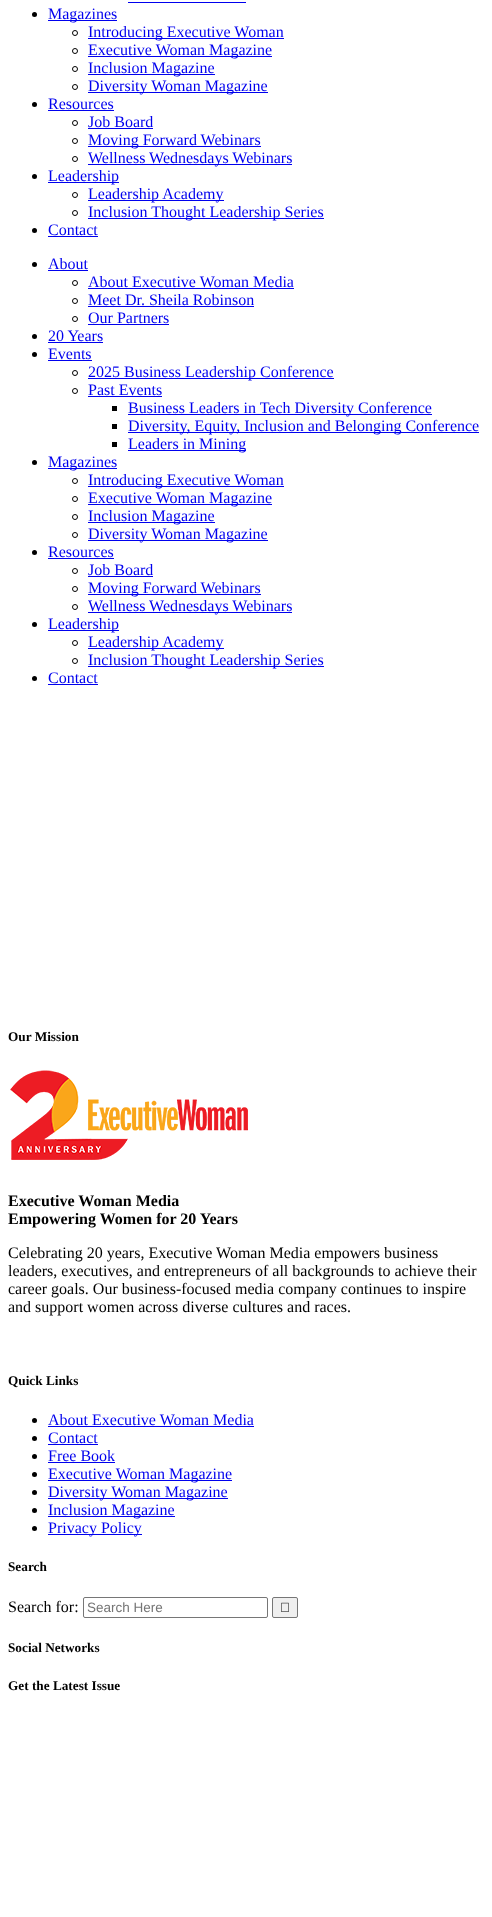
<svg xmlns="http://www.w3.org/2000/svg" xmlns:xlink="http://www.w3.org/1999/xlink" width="492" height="1917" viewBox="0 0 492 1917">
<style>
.cls-1{font:16px Liberation Serif;fill:#0000ee}
.cls-2{font:bold 13.25px Liberation Serif;fill:#000000}
.cls-3{font:bold 16px Liberation Serif;fill:#000000}
.cls-4{font:16px Liberation Serif;fill:#000000}
.cls-5{font:13.5px Liberation Sans;fill:#757575}
</style>
<rect width="100%" height="100%" fill="#ffffff"/>
<rect fill="#0000ee" x="128" y="2" width="118" height="1"/>
<circle fill="#000000" cx="34.5" cy="14.5" r="2.5"/>
<rect fill="#0000ee" x="48" y="20" width="69" height="1"/>
<circle fill="none" stroke="#000000" cx="75" cy="33" r="2.5"/>
<rect fill="#0000ee" x="88" y="38" width="196" height="1"/>
<circle fill="none" stroke="#000000" cx="75" cy="51" r="2.5"/>
<rect fill="#0000ee" x="88" y="56" width="184" height="1"/>
<circle fill="none" stroke="#000000" cx="75" cy="69" r="2.5"/>
<rect fill="#0000ee" x="88" y="74" width="127" height="1"/>
<circle fill="none" stroke="#000000" cx="75" cy="87" r="2.5"/>
<rect fill="#0000ee" x="88" y="92" width="180" height="1"/>
<circle fill="#000000" cx="34.5" cy="104.5" r="2.5"/>
<rect fill="#0000ee" x="48" y="110" width="66" height="1"/>
<circle fill="none" stroke="#000000" cx="75" cy="123" r="2.5"/>
<rect fill="#0000ee" x="88" y="128" width="65" height="1"/>
<circle fill="none" stroke="#000000" cx="75" cy="141" r="2.5"/>
<rect fill="#0000ee" x="88" y="146" width="173" height="1"/>
<circle fill="none" stroke="#000000" cx="75" cy="159" r="2.5"/>
<rect fill="#0000ee" x="88" y="164" width="204" height="1"/>
<circle fill="#000000" cx="34.5" cy="176.5" r="2.5"/>
<rect fill="#0000ee" x="48" y="182" width="71" height="1"/>
<circle fill="none" stroke="#000000" cx="75" cy="195" r="2.5"/>
<rect fill="#0000ee" x="88" y="200" width="136" height="1"/>
<circle fill="none" stroke="#000000" cx="75" cy="213" r="2.5"/>
<rect fill="#0000ee" x="88" y="218" width="236" height="1"/>
<circle fill="#000000" cx="34.5" cy="230.5" r="2.5"/>
<rect fill="#0000ee" x="48" y="236" width="50" height="1"/>
<circle fill="#000000" cx="34.5" cy="264.5" r="2.5"/>
<rect fill="#0000ee" x="48" y="270" width="40" height="1"/>
<circle fill="none" stroke="#000000" cx="75" cy="283" r="2.5"/>
<rect fill="#0000ee" x="88" y="288" width="206" height="1"/>
<circle fill="none" stroke="#000000" cx="75" cy="301" r="2.5"/>
<rect fill="#0000ee" x="88" y="306" width="166" height="1"/>
<circle fill="none" stroke="#000000" cx="75" cy="319" r="2.5"/>
<rect fill="#0000ee" x="88" y="324" width="81" height="1"/>
<circle fill="#000000" cx="34.5" cy="336.5" r="2.5"/>
<rect fill="#0000ee" x="48" y="342" width="55" height="1"/>
<circle fill="#000000" cx="34.5" cy="354.5" r="2.5"/>
<rect fill="#0000ee" x="48" y="360" width="44" height="1"/>
<circle fill="none" stroke="#000000" cx="75" cy="373" r="2.5"/>
<rect fill="#0000ee" x="88" y="378" width="246" height="1"/>
<circle fill="none" stroke="#000000" cx="75" cy="391" r="2.5"/>
<rect fill="#0000ee" x="88" y="396" width="74" height="1"/>
<rect fill="#000000" x="112" y="406" width="5" height="5"/>
<rect fill="#0000ee" x="128" y="414" width="304" height="1"/>
<rect fill="#000000" x="112" y="424" width="5" height="5"/>
<rect fill="#0000ee" x="128" y="432" width="351" height="1"/>
<rect fill="#000000" x="112" y="442" width="5" height="5"/>
<rect fill="#0000ee" x="128" y="450" width="118" height="1"/>
<circle fill="#000000" cx="34.5" cy="462.5" r="2.5"/>
<rect fill="#0000ee" x="48" y="468" width="69" height="1"/>
<circle fill="none" stroke="#000000" cx="75" cy="481" r="2.5"/>
<rect fill="#0000ee" x="88" y="486" width="196" height="1"/>
<circle fill="none" stroke="#000000" cx="75" cy="499" r="2.5"/>
<rect fill="#0000ee" x="88" y="504" width="184" height="1"/>
<circle fill="none" stroke="#000000" cx="75" cy="517" r="2.5"/>
<rect fill="#0000ee" x="88" y="522" width="127" height="1"/>
<circle fill="none" stroke="#000000" cx="75" cy="535" r="2.5"/>
<rect fill="#0000ee" x="88" y="540" width="180" height="1"/>
<circle fill="#000000" cx="34.5" cy="552.5" r="2.5"/>
<rect fill="#0000ee" x="48" y="558" width="66" height="1"/>
<circle fill="none" stroke="#000000" cx="75" cy="571" r="2.5"/>
<rect fill="#0000ee" x="88" y="576" width="65" height="1"/>
<circle fill="none" stroke="#000000" cx="75" cy="589" r="2.5"/>
<rect fill="#0000ee" x="88" y="594" width="173" height="1"/>
<circle fill="none" stroke="#000000" cx="75" cy="607" r="2.5"/>
<rect fill="#0000ee" x="88" y="612" width="204" height="1"/>
<circle fill="#000000" cx="34.5" cy="624.5" r="2.5"/>
<rect fill="#0000ee" x="48" y="630" width="71" height="1"/>
<circle fill="none" stroke="#000000" cx="75" cy="643" r="2.5"/>
<rect fill="#0000ee" x="88" y="648" width="136" height="1"/>
<circle fill="none" stroke="#000000" cx="75" cy="661" r="2.5"/>
<rect fill="#0000ee" x="88" y="666" width="236" height="1"/>
<circle fill="#000000" cx="34.5" cy="678.5" r="2.5"/>
<rect fill="#0000ee" x="48" y="684" width="50" height="1"/>
<image xlink:href="image0.png" x="10" y="1070" width="238" height="90"/>
<circle fill="#000000" cx="34.5" cy="1420.5" r="2.5"/>
<rect fill="#0000ee" x="48" y="1426" width="206" height="1"/>
<circle fill="#000000" cx="34.5" cy="1438.5" r="2.5"/>
<rect fill="#0000ee" x="48" y="1444" width="50" height="1"/>
<circle fill="#000000" cx="34.5" cy="1456.5" r="2.5"/>
<rect fill="#0000ee" x="48" y="1462" width="67" height="1"/>
<circle fill="#000000" cx="34.5" cy="1474.5" r="2.5"/>
<rect fill="#0000ee" x="48" y="1480" width="184" height="1"/>
<circle fill="#000000" cx="34.5" cy="1492.5" r="2.5"/>
<rect fill="#0000ee" x="48" y="1498" width="180" height="1"/>
<circle fill="#000000" cx="34.5" cy="1510.5" r="2.5"/>
<rect fill="#0000ee" x="48" y="1516" width="127" height="1"/>
<circle fill="#000000" cx="34.5" cy="1528.5" r="2.5"/>
<rect fill="#0000ee" x="48" y="1534" width="94" height="1"/>
<rect fill="none" stroke="#767676" x="83.5" y="1597.5" width="184" height="20" rx="1.5"/>
<rect fill="#efefef" stroke="#767676" x="272.5" y="1597.5" width="25" height="20" rx="1.5"/>
<image xlink:href="image1.png" x="281" y="1602" width="8" height="10"/>
<text class="cls-1" x="48" y="19">Magazines</text>
<text class="cls-1"><tspan x="88" y="37">Introducing Executive Woman</tspan><tspan x="88" y="55">Executive Woman Magazine</tspan><tspan x="88" y="73">Inclusion Magazine</tspan><tspan x="88" y="91">Diversity Woman Magazine</tspan></text>
<text class="cls-1" x="48" y="109">Resources</text>
<text class="cls-1"><tspan x="88" y="127">Job Board</tspan><tspan x="88" y="145">Moving Forward Webinars</tspan><tspan x="88" y="163">Wellness Wednesdays Webinars</tspan></text>
<text class="cls-1" x="48" y="181">Leadership</text>
<text class="cls-1"><tspan x="88" y="199">Leadership Academy</tspan><tspan x="88" y="217">Inclusion Thought Leadership Series</tspan></text>
<text class="cls-1" x="48" y="235">Contact</text>
<text class="cls-1" x="48" y="269">About</text>
<text class="cls-1"><tspan x="88" y="287">About Executive Woman Media</tspan><tspan x="88" y="305">Meet Dr. Sheila Robinson</tspan><tspan x="88" y="323">Our Partners</tspan></text>
<text class="cls-1"><tspan x="48" y="341">20 Years</tspan><tspan x="48" y="359">Events</tspan></text>
<text class="cls-1"><tspan x="88" y="377">2025 Business Leadership Conference</tspan><tspan x="88" y="395">Past Events</tspan></text>
<text class="cls-1"><tspan x="128" y="413">Business Leaders in Tech Diversity Conference</tspan><tspan x="128" y="431">Diversity, Equity, Inclusion and Belonging Conference</tspan><tspan x="128" y="449">Leaders in Mining</tspan></text>
<text class="cls-1" x="48" y="467">Magazines</text>
<text class="cls-1"><tspan x="88" y="485">Introducing Executive Woman</tspan><tspan x="88" y="503">Executive Woman Magazine</tspan><tspan x="88" y="521">Inclusion Magazine</tspan><tspan x="88" y="539">Diversity Woman Magazine</tspan></text>
<text class="cls-1" x="48" y="557">Resources</text>
<text class="cls-1"><tspan x="88" y="575">Job Board</tspan><tspan x="88" y="593">Moving Forward Webinars</tspan><tspan x="88" y="611">Wellness Wednesdays Webinars</tspan></text>
<text class="cls-1" x="48" y="629">Leadership</text>
<text class="cls-1"><tspan x="88" y="647">Leadership Academy</tspan><tspan x="88" y="665">Inclusion Thought Leadership Series</tspan></text>
<text class="cls-1" x="48" y="683">Contact</text>
<text class="cls-2" x="8" y="1041">Our Mission</text>
<text class="cls-3"><tspan x="8" y="1206">Executive Woman Media</tspan><tspan x="8" y="1224">Empowering Women for 20 Years</tspan></text>
<text class="cls-4"><tspan x="8" y="1258">Celebrating 20 years, Executive Woman Media empowers business</tspan><tspan x="8" y="1276">leaders, executives, and entrepreneurs of all backgrounds to achieve their</tspan><tspan x="8" y="1294">career goals. Our business-focused media company continues to inspire</tspan><tspan x="8" y="1312">and support women across diverse cultures and races.</tspan></text>
<text class="cls-2" x="8" y="1385">Quick Links</text>
<text class="cls-1"><tspan x="48" y="1425">About Executive Woman Media</tspan><tspan x="48" y="1443">Contact</tspan><tspan x="48" y="1461">Free Book</tspan><tspan x="48" y="1479">Executive Woman Magazine</tspan><tspan x="48" y="1497">Diversity Woman Magazine</tspan><tspan x="48" y="1515">Inclusion Magazine</tspan><tspan x="48" y="1533">Privacy Policy</tspan></text>
<text class="cls-2" x="8" y="1571">Search</text>
<text class="cls-4" x="8" y="1612">Search for:</text>
<text class="cls-5" x="87" y="1612">Search Here</text>
<text class="cls-2" x="8" y="1652">Social Networks</text>
<text class="cls-2" x="8" y="1690">Get the Latest Issue</text>
</svg>
